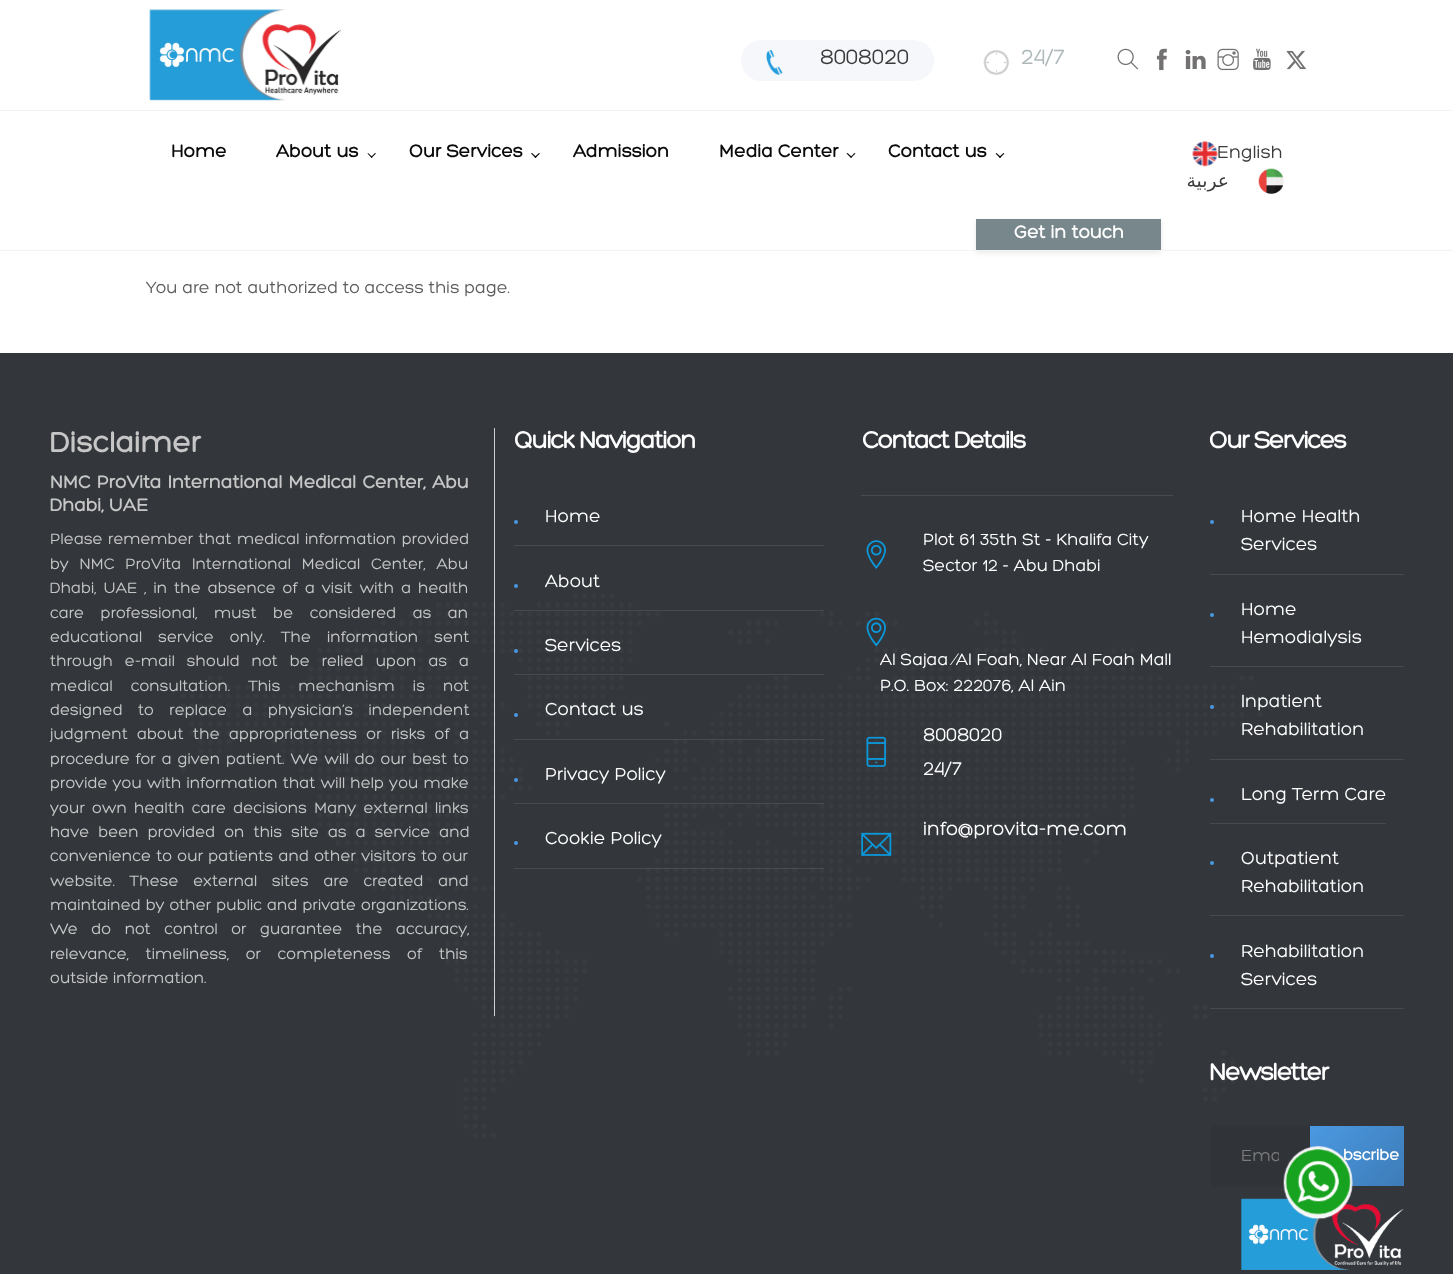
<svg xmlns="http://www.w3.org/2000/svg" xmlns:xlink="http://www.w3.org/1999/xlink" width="1453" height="1274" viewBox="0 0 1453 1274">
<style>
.cls-1{font:22.5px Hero;fill:#3b3b3b}
.cls-2{font:22.5px Hero;fill:#aeb8ba}
.cls-3{font:bold 18.75px Hero;fill:#0a0a0a}
.cls-4{font:18.75px Hero;fill:#3b3b3b}
.cls-5{font:18.75px DejaVu Sans;direction:rtl;fill:#3b3b3b}
.cls-6{font:bold 18.75px Hero;fill:#ffffff}
.cls-7{font:17.5px Hero;fill:#5c5c5c}
.cls-8{font:bold 30px Hero;fill:#c6c6c6}
.cls-9{font:bold 18.75px Hero;fill:#c6c6c6}
.cls-10{font:16.25px Hero;fill:#c6c6c6}
.cls-11{font:bold 25px Hero;letter-spacing:-1.25px;fill:#ffffff}
.cls-12{font:18.75px Hero;fill:#ffffff}
.cls-13{font:17.5px Hero;fill:#ffffff}
.cls-14{font:17.5px Liberation Serif;fill:#ffffff}
.cls-15{font:20px Hero;fill:#ffffff}
.cls-16{font:17.5px Hero;fill:#7b7b7b}
.cls-17{font:bold 16.25px Hero;fill:#ffffff}
</style>
<defs>
<linearGradient id="g1" gradientUnits="userSpaceOnUse" x1="1317" y1="1119" x2="1397" y2="1194"><stop offset="0" stop-color="#4b99e2"/><stop offset="1" stop-color="#3d7bb7"/></linearGradient>
<clipPath id="clip1"><rect x="1241" y="1148" width="38" height="18"/></clipPath>
</defs>
<rect width="100%" height="100%" fill="#ffffff"/>
<image xlink:href="image0.png" x="149" y="9" width="193" height="92"/>
<rect fill="#f5f7fb" x="741" y="40" width="193" height="41" rx="20.5"/>
<image xlink:href="image1.png" x="766" y="50" width="17" height="25"/>
<image xlink:href="image2.png" x="983" y="50" width="26" height="25"/>
<image xlink:href="image3.png" x="1117" y="48" width="22" height="22"/>
<image xlink:href="image4.png" x="1156" y="48" width="11" height="23"/>
<image xlink:href="image5.png" x="1185" y="49" width="21" height="20"/>
<image xlink:href="image6.png" x="1217" y="48" width="22" height="23"/>
<image xlink:href="image7.png" x="1253" y="48" width="18" height="23"/>
<image xlink:href="image8.png" x="1286" y="50" width="20" height="20"/>
<rect fill="#f3f3f3" x="0" y="110" width="1453" height="1"/>
<path fill="#0a0a0a" d="M375 153L376 153.5L371.5 158L371 157Z"/>
<path fill="#0a0a0a" d="M368 153L372.5 157L371.5 158L367.5 153.5Z"/>
<path fill="#0a0a0a" d="M539 153L540 153.5L535.5 158L534.5 157Z"/>
<path fill="#0a0a0a" d="M532 153L536.5 157L535.5 158L531 153.5Z"/>
<path fill="#0a0a0a" d="M854.5 153L855.5 153.5L851 158L850.5 157Z"/>
<path fill="#0a0a0a" d="M847.5 153L852 157L851 158L846.5 153.5Z"/>
<path fill="#0a0a0a" d="M1003.5 153L1004.5 153.5L1000 158L999 157Z"/>
<path fill="#0a0a0a" d="M996.5 153L1001 157L1000 158L995.5 153.5Z"/>
<image xlink:href="image9.png" x="1192" y="141" width="26" height="26"/>
<image xlink:href="image10.png" x="1258" y="168" width="26" height="26"/>
<rect fill="#0a0a0a" fill-opacity="0.09" filter="blur(2.5px)" x="976" y="221" width="185" height="32"/>
<rect fill="#77878c" x="976" y="219" width="185" height="31"/>
<rect fill="#f3f3f3" x="0" y="250" width="1453" height="1"/>
<rect fill="#33373c" x="0" y="353" width="1453" height="921"/>
<image xlink:href="image11.png" x="180" y="593" width="1092" height="545"/>
<rect fill="#cecece" x="494" y="428" width="1" height="588"/>
<rect fill="#474b4f" x="514" y="545" width="310" height="1"/>
<circle fill="#4a98e2" cx="516" cy="522" r="2"/>
<rect fill="#474b4f" x="514" y="610" width="310" height="1"/>
<circle fill="#4a98e2" cx="516" cy="586" r="2"/>
<rect fill="#474b4f" x="514" y="674" width="310" height="1"/>
<circle fill="#4a98e2" cx="516" cy="651" r="2"/>
<rect fill="#ffffff" fill-opacity="0.1" x="514" y="739" width="310" height="1"/>
<circle fill="#4a98e2" cx="516" cy="715" r="2"/>
<rect fill="#ffffff" fill-opacity="0.1" x="514" y="803" width="310" height="1"/>
<circle fill="#4a98e2" cx="516" cy="780" r="2"/>
<rect fill="#ffffff" fill-opacity="0.1" x="514" y="868" width="310" height="1"/>
<circle fill="#4a98e2" cx="516" cy="843" r="2"/>
<rect fill="#474b4f" x="861" y="495" width="312" height="1"/>
<image xlink:href="image12.png" x="866" y="540" width="20" height="29"/>
<image xlink:href="image13.png" x="866" y="617" width="20" height="30"/>
<image xlink:href="image14.png" x="866" y="736" width="20" height="31"/>
<image xlink:href="image15.png" x="861" y="832" width="31" height="24"/>
<rect fill="#474b4f" x="1210" y="574" width="194" height="1"/>
<circle fill="#4a98e2" cx="1212" cy="522" r="2"/>
<rect fill="#474b4f" x="1210" y="666" width="194" height="1"/>
<circle fill="#4a98e2" cx="1212" cy="615" r="2"/>
<rect fill="#474b4f" x="1210" y="759" width="194" height="1"/>
<circle fill="#4a98e2" cx="1212" cy="707" r="2"/>
<rect fill="#474b4f" x="1210" y="823" width="176" height="1"/>
<circle fill="#4a98e2" cx="1212" cy="800" r="2"/>
<rect fill="#474b4f" x="1210" y="915" width="194" height="1"/>
<circle fill="#4a98e2" cx="1212" cy="863" r="2"/>
<rect fill="#474b4f" x="1210" y="1008" width="194" height="1"/>
<circle fill="#4a98e2" cx="1212" cy="956" r="2"/>
<rect fill="#303338" x="1210" y="1126" width="194" height="60" rx="6"/>
<rect fill="url(#g1)" x="1310" y="1126" width="94" height="60"/>
<image xlink:href="image16.png" x="1241" y="1198" width="163" height="72"/>
<text class="cls-1" x="820" y="64">8008020</text>
<text class="cls-2" x="1021" y="64">24/7</text>
<text class="cls-3" x="171" y="157">Home</text>
<text class="cls-3" x="276" y="157">About us</text>
<text class="cls-3" x="409" y="157">Our Services</text>
<text class="cls-3" x="573" y="157">Admission</text>
<text class="cls-3" x="719" y="157">Media Center</text>
<text class="cls-3" x="888" y="157">Contact us</text>
<text class="cls-4" x="1217" y="158">English</text>
<text class="cls-5" x="1229" y="187">عربية</text>
<text class="cls-6" x="1014" y="238">Get in touch</text>
<text class="cls-7" x="146" y="293">You are not authorized to access this page.</text>
<text class="cls-8" x="50" y="452">Disclaimer</text>
<text class="cls-9"><tspan x="50" y="488" word-spacing="1.25">NMC ProVita International Medical Center, Abu</tspan><tspan x="50" y="511">Dhabi, UAE</tspan></text>
<text class="cls-10"><tspan x="50" y="544" word-spacing="1">Please remember that medical information provided</tspan><tspan x="50" y="569" word-spacing="6.25">by NMC ProVita International Medical Center, Abu</tspan><tspan x="50" y="593" word-spacing="2.4">Dhabi, UAE , in the absence of a visit with a health</tspan><tspan x="50" y="618" word-spacing="12">care professional, must be considered as an</tspan><tspan x="50" y="642" word-spacing="11.5">educational service only. The information sent</tspan><tspan x="50" y="666" word-spacing="7.5">through e-mail should not be relied upon as a</tspan><tspan x="50" y="691" word-spacing="13.5">medical consultation. This mechanism is not</tspan><tspan x="50" y="715" word-spacing="11">designed to replace a physician’s independent</tspan><tspan x="50" y="739" word-spacing="4.75">judgment about the appropriateness or risks of a</tspan><tspan x="50" y="764" word-spacing="1.4">procedure for a given patient. We will do our best to</tspan><tspan x="50" y="788" word-spacing="0.5">provide you with information that will help you make</tspan><tspan x="50" y="813" word-spacing="2.75">your own health care decisions Many external links</tspan><tspan x="50" y="837" word-spacing="4.5">have been provided on this site as a service and</tspan><tspan x="50" y="861" word-spacing="0.75">convenience to our patients and other visitors to our</tspan><tspan x="50" y="886" word-spacing="10.25">website. These external sites are created and</tspan><tspan x="50" y="910" word-spacing="0.5">maintained by other public and private organizations.</tspan><tspan x="50" y="934" word-spacing="9">We do not control or guarantee the accuracy,</tspan><tspan x="50" y="959" word-spacing="12">relevance, timeliness, or completeness of this</tspan><tspan x="50" y="983">outside information.</tspan></text>
<text class="cls-11" x="514" y="448">Quick Navigation</text>
<text class="cls-12" x="545" y="522">Home</text>
<text class="cls-12" x="545" y="587">About</text>
<text class="cls-12" x="545" y="651">Services</text>
<text class="cls-12" x="545" y="715">Contact us</text>
<text class="cls-12" x="545" y="780">Privacy Policy</text>
<text class="cls-12" x="545" y="844">Cookie Policy</text>
<text class="cls-11" x="862" y="448">Contact Details</text>
<text class="cls-13"><tspan x="923" y="545">Plot 61 35th St - Khalifa City</tspan><tspan x="923" y="571">Sector 12 - Abu Dhabi</tspan></text>
<text class="cls-13" x="880" y="665">Al Sajaa</text>
<text class="cls-14" x="953" y="665">⁄</text>
<text class="cls-13" x="956" y="665">Al Foah, Near Al Foah Mall</text>
<text class="cls-13" x="880" y="691">P.O. Box: 222076, Al Ain</text>
<text class="cls-15"><tspan x="923" y="741">8008020</tspan><tspan x="923" y="775">24/7</tspan></text>
<text class="cls-15" x="923" y="835">info@provita-me.com</text>
<text class="cls-11" x="1209" y="448">Our Services</text>
<text class="cls-12"><tspan x="1241" y="522">Home Health</tspan><tspan x="1241" y="550">Services</tspan></text>
<text class="cls-12"><tspan x="1241" y="615">Home</tspan><tspan x="1241" y="643">Hemodialysis</tspan></text>
<text class="cls-12"><tspan x="1241" y="707">Inpatient</tspan><tspan x="1241" y="735">Rehabilitation</tspan></text>
<text class="cls-12" x="1241" y="800">Long Term Care</text>
<text class="cls-12"><tspan x="1241" y="864">Outpatient</tspan><tspan x="1241" y="892">Rehabilitation</tspan></text>
<text class="cls-12"><tspan x="1241" y="957">Rehabilitation</tspan><tspan x="1241" y="985">Services</tspan></text>
<text class="cls-11" x="1209" y="1080">Newsletter</text>
<g clip-path="url(#clip1)">
<text class="cls-16" x="1241" y="1161">Ema</text>
</g>
<text class="cls-17" x="1343" y="1160">bscribe</text>
<image xlink:href="image17.png" x="1283" y="1146" width="70" height="74"/>
</svg>
